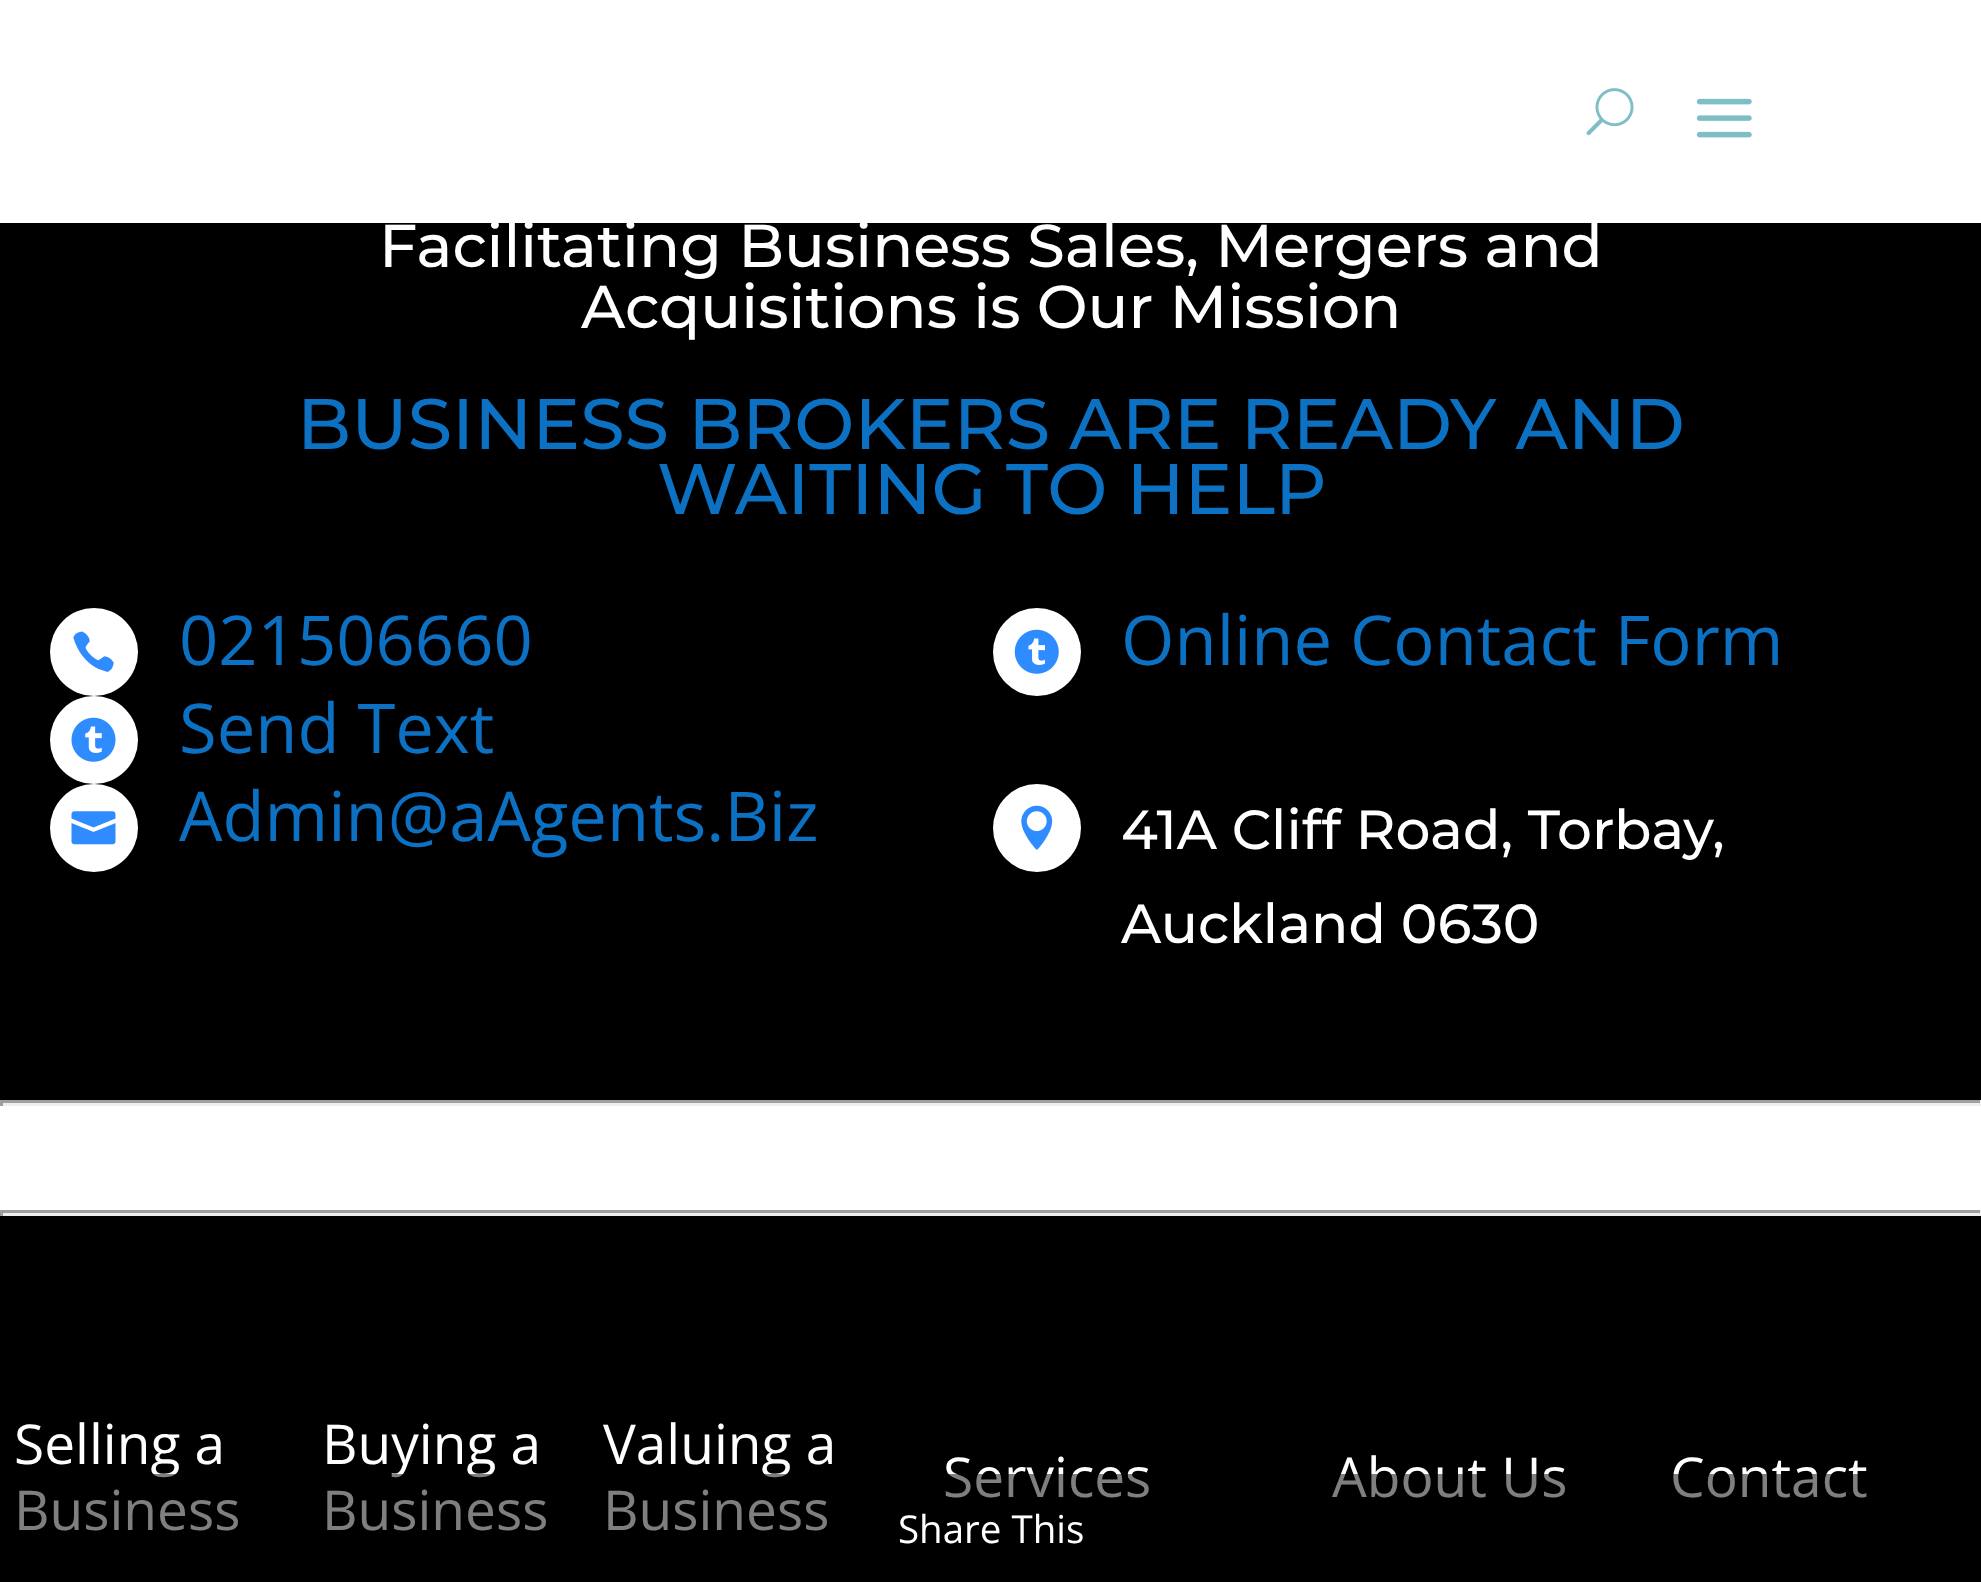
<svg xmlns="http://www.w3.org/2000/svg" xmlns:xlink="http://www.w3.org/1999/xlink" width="1981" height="1582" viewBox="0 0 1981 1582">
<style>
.cls-1{font:100 60.5px Montserrat;fill:#ffffff}
.cls-2{font:100 71.5px Montserrat;fill:#0c71c3}
.cls-3{font:68.75px Open Sans;fill:#0c71c3}
.cls-4{font:100 55px Montserrat;fill:#ffffff}
.cls-5{font:55px Open Sans;fill:#ffffff}
.cls-6{font:38.5px Open Sans;fill:#ffffff}
</style>
<rect width="100%" height="100%" fill="#000000"/>
<rect fill="#ffffff" x="0" y="0" width="1981" height="223"/>
<image xlink:href="image0.png" x="1586" y="88" width="48" height="48"/>
<image xlink:href="image1.png" x="1696" y="98" width="56" height="40"/>
<circle fill="#ffffff" cx="94" cy="652" r="44"/>
<image xlink:href="image2.png" x="73" y="631" width="41" height="41"/>
<circle fill="#ffffff" cx="94" cy="740" r="44"/>
<image xlink:href="image3.png" x="71" y="717" width="45" height="45"/>
<circle fill="#ffffff" cx="1037" cy="652" r="44"/>
<image xlink:href="image4.png" x="1014" y="629" width="45" height="45"/>
<circle fill="#ffffff" cx="94" cy="828" r="44"/>
<image xlink:href="image5.png" x="71" y="811" width="45" height="34"/>
<circle fill="#ffffff" cx="1037" cy="828" r="44"/>
<image xlink:href="image6.png" x="1021" y="805" width="32" height="45"/>
<rect fill="#ffffff" x="0" y="1106" width="1981" height="104"/>
<rect fill="#9f9f9f" x="0" y="1100" width="1981" height="3"/>
<rect fill="#eeeeee" x="1980" y="1100" width="1" height="6"/>
<rect fill="#eeeeee" x="0" y="1103" width="1981" height="3"/>
<rect fill="#9f9f9f" x="0" y="1100" width="3" height="6"/>
<rect fill="#9f9f9f" x="0" y="1210" width="1981" height="3"/>
<rect fill="#eeeeee" x="1980" y="1210" width="1" height="6"/>
<rect fill="#eeeeee" x="0" y="1213" width="1981" height="3"/>
<rect fill="#9f9f9f" x="0" y="1210" width="3" height="6"/>
<text class="cls-1" x="379" y="267">Facilitating Business Sales, Mergers and</text>
<text class="cls-1" x="581" y="328">Acquisitions is Our Mission</text>
<text class="cls-2" x="297" y="449">BUSINESS BROKERS ARE READY AND</text>
<text class="cls-2" x="657" y="514">WAITING TO HELP</text>
<text class="cls-3"><tspan x="179" y="665">021506660</tspan><tspan x="179" y="753">Send Text</tspan></text>
<text class="cls-3" x="1121" y="665">Online Contact Form</text>
<text class="cls-3" x="179" y="841">Admin@aAgents.Biz</text>
<text class="cls-4"><tspan x="1121" y="849">41A Cliff Road, Torbay,</tspan><tspan x="1121" y="943">Auckland 0630</tspan></text>
<text class="cls-5"><tspan x="14" y="1464">Selling a</tspan><tspan x="14" y="1530">Business</tspan></text>
<text class="cls-5"><tspan x="322" y="1464">Buying a</tspan><tspan x="322" y="1530">Business</tspan></text>
<text class="cls-5"><tspan x="603" y="1464">Valuing a</tspan><tspan x="603" y="1530">Business</tspan></text>
<text class="cls-5" x="943" y="1497">Services</text>
<text class="cls-5" x="1332" y="1497">About Us</text>
<text class="cls-5" x="1670" y="1497">Contact</text>
<rect fill="#000000" fill-opacity="0.5" x="19" y="1474" width="1848" height="57"/>
<text class="cls-6" x="898" y="1543">Share This</text>
</svg>
